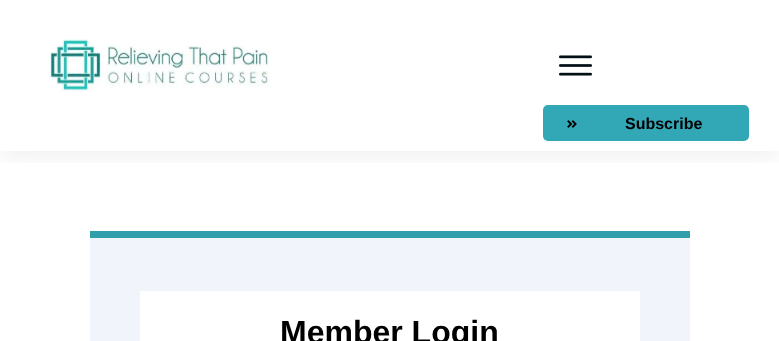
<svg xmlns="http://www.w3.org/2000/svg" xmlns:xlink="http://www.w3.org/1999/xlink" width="779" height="341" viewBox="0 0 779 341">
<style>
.cls-1{font:bold 16px Liberation Sans;fill:#000000}
.cls-2{font:bold 32px Liberation Sans;fill:#000000}
</style>
<defs>
<clipPath id="clip1"><rect x="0" y="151" width="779" height="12"/></clipPath>
</defs>
<rect width="100%" height="100%" fill="#ffffff"/>
<g clip-path="url(#clip1)">
<rect fill="#000000" fill-opacity="0.08" filter="blur(15px)" x="0" y="2" width="779" height="151"/>
</g>
<image xlink:href="image0.png" x="49" y="39" width="222" height="53"/>
<image xlink:href="image1.png" x="559" y="55" width="33" height="21"/>
<rect fill="#32a7b6" x="543" y="105" width="206" height="36" rx="5"/>
<image xlink:href="image2.png" x="567" y="120" width="10" height="8"/>
<rect fill="#f1f4fb" x="90" y="238" width="600" height="103"/>
<rect fill="#309fab" x="90" y="231" width="600" height="7"/>
<rect fill="#ffffff" x="140" y="291" width="500" height="50"/>
<text class="cls-1" x="625" y="129">Subscribe</text>
<text class="cls-2" x="280" y="343">Member Login</text>
</svg>
